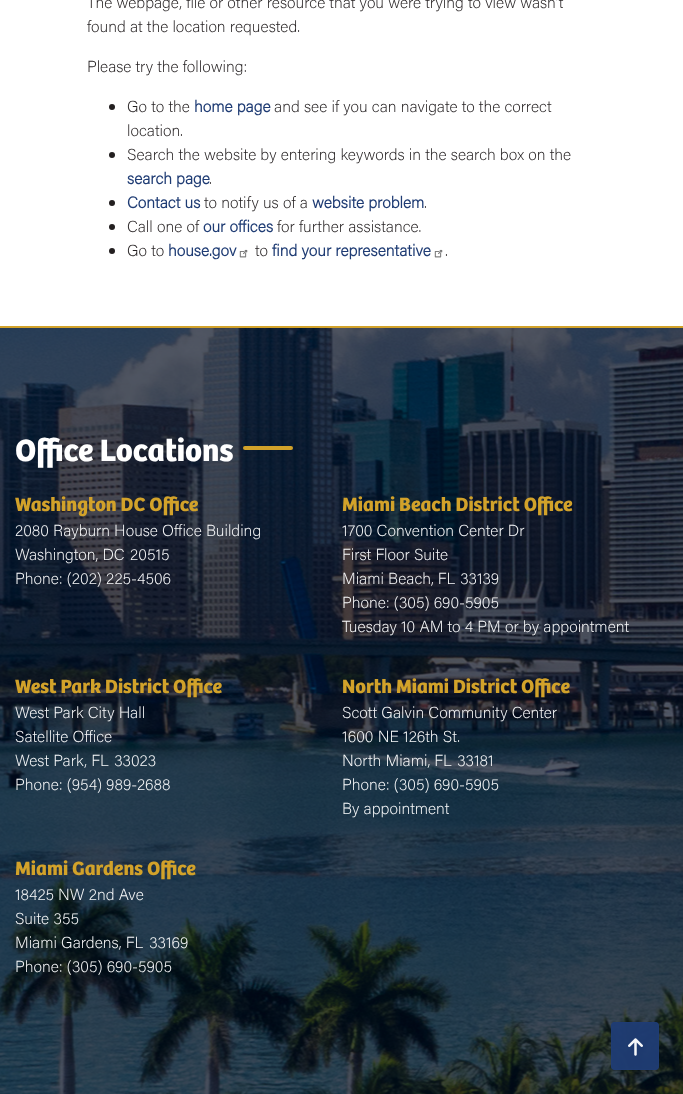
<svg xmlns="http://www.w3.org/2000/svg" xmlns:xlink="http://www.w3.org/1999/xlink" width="683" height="1094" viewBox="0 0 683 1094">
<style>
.cls-1{font:200 16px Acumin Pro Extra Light;fill:#231f20}
.cls-2{font:bold 16px Acumin Pro Extra Light;fill:#1f3c74}
.cls-3{font:bold 32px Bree;fill:#ffffff}
.cls-4{font:bold 20px Bree;fill:#d2a22a}
.cls-5{font:200 16px Acumin Pro Extra Light;fill:#f8f9fa}
</style>
<rect width="100%" height="100%" fill="#ffffff"/>
<circle fill="#231f20" cx="112" cy="107" r="3"/>
<circle fill="#231f20" cx="112" cy="155" r="3"/>
<circle fill="#231f20" cx="112" cy="203" r="3"/>
<circle fill="#231f20" cx="112" cy="227" r="3"/>
<circle fill="#231f20" cx="112" cy="251" r="3"/>
<image xlink:href="image0.png" x="239" y="249" width="9" height="9"/>
<image xlink:href="image0.png" x="434" y="249" width="9" height="9"/>
<rect fill="#010b20" x="0" y="328" width="683" height="766"/>
<image xlink:href="image2.png" x="0" y="328" width="683" height="766"/>
<rect fill="#1f3c74" fill-opacity="0.96" x="611" y="1022" width="48" height="48" rx="4"/>
<rect fill="none" stroke="#1f3c74" stroke-opacity="0.96" x="611.5" y="1022.5" width="47" height="47" rx="3.5"/>
<image xlink:href="image1.png" x="628" y="1038" width="15" height="18"/>
<rect fill="#d2a22a" x="0" y="326" width="683" height="2"/>
<rect fill="#d2a22a" x="243" y="446" width="50" height="4" rx="2"/>
<text class="cls-1"><tspan x="87" y="8">The webpage, file or other resource that you were trying to view wasn't</tspan><tspan x="87" y="32">found at the location requested.</tspan></text>
<text class="cls-1" x="87" y="72">Please try the following:</text>
<text class="cls-1" x="127" y="112">Go to the</text>
<text class="cls-2" x="194" y="112">home page</text>
<text class="cls-1" x="274" y="112">and see if you can navigate to the correct</text>
<text class="cls-1"><tspan x="127" y="136">location.</tspan><tspan x="127" y="160">Search the website by entering keywords in the search box on the</tspan></text>
<text class="cls-2" x="127" y="184">search page</text>
<text class="cls-1" x="209" y="184">.</text>
<text class="cls-2" x="127" y="208">Contact us</text>
<text class="cls-1" x="204" y="208">to notify us of a</text>
<text class="cls-2" x="312" y="208">website problem</text>
<text class="cls-1" x="424" y="208">.</text>
<text class="cls-1" x="127" y="232">Call one of</text>
<text class="cls-2" x="203" y="232">our offices</text>
<text class="cls-1" x="277" y="232">for further assistance.</text>
<text class="cls-1" x="127" y="256">Go to</text>
<text class="cls-2" x="168" y="256">house.gov</text>
<text class="cls-1" x="255" y="256">to</text>
<text class="cls-2" x="272" y="256">find your representative</text>
<text class="cls-1" x="445" y="256">.</text>
<text class="cls-3" x="15" y="461">Office Locations</text>
<text class="cls-4" x="15" y="511">Washington DC Office</text>
<text class="cls-5"><tspan x="15" y="536">2080 Rayburn House Office Building</tspan><tspan x="15" y="560">Washington, DC</tspan></text>
<text class="cls-5" x="130" y="560">20515</text>
<text class="cls-5" x="15" y="584">Phone: (202) 225-4506</text>
<text class="cls-4" x="342" y="511">Miami Beach District Office</text>
<text class="cls-5"><tspan x="342" y="536">1700 Convention Center Dr</tspan><tspan x="342" y="560">First Floor Suite</tspan><tspan x="342" y="584">Miami Beach, FL</tspan></text>
<text class="cls-5" x="460" y="584">33139</text>
<text class="cls-5"><tspan x="342" y="608">Phone: (305) 690-5905</tspan><tspan x="342" y="632">Tuesday 10 AM to 4 PM or by appointment</tspan></text>
<text class="cls-4" x="15" y="693">West Park District Office</text>
<text class="cls-5"><tspan x="15" y="718">West Park City Hall</tspan><tspan x="15" y="742">Satellite Office</tspan><tspan x="15" y="766">West Park, FL</tspan></text>
<text class="cls-5" x="114" y="766">33023</text>
<text class="cls-5" x="15" y="790">Phone: (954) 989-2688</text>
<text class="cls-4" x="342" y="693">North Miami District Office</text>
<text class="cls-5"><tspan x="342" y="718">Scott Galvin Community Center</tspan><tspan x="342" y="742">1600 NE 126th St.</tspan><tspan x="342" y="766">North Miami, FL</tspan></text>
<text class="cls-5" x="457" y="766">33181</text>
<text class="cls-5"><tspan x="342" y="790">Phone: (305) 690-5905</tspan><tspan x="342" y="814">By appointment</tspan></text>
<text class="cls-4" x="15" y="875">Miami Gardens Office</text>
<text class="cls-5"><tspan x="15" y="900">18425 NW 2nd Ave</tspan><tspan x="15" y="924">Suite 355</tspan><tspan x="15" y="948">Miami Gardens, FL</tspan></text>
<text class="cls-5" x="149" y="948">33169</text>
<text class="cls-5" x="15" y="972">Phone: (305) 690-5905</text>
</svg>
